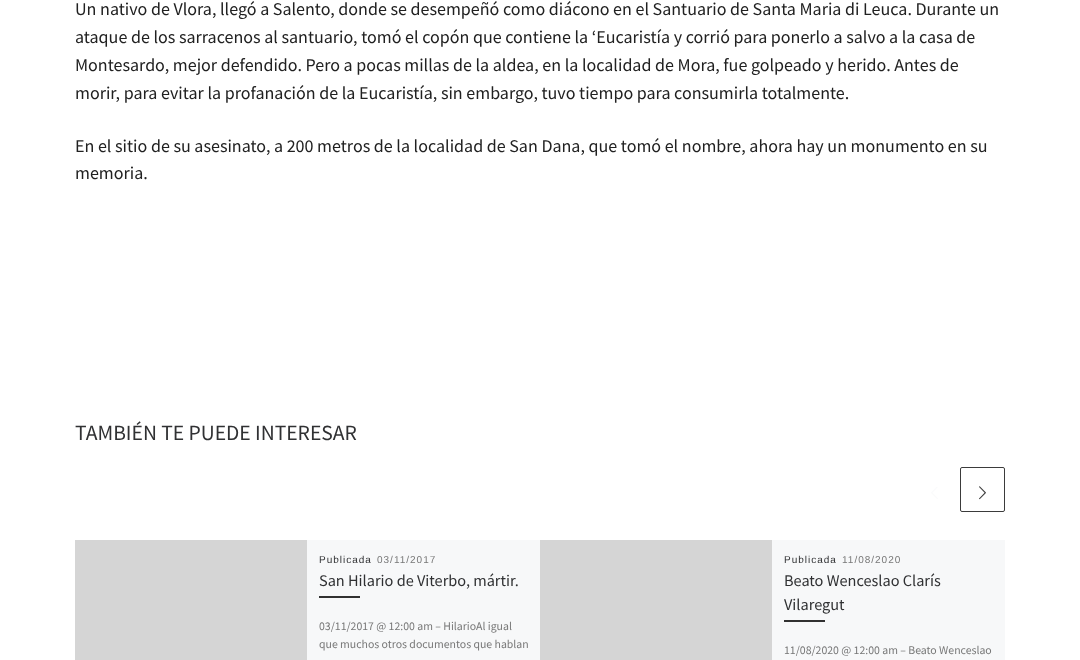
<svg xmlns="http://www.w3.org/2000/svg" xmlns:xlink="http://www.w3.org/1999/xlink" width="1080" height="660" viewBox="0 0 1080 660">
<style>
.cls-1{font:18px Source Sans Pro;fill:#212121}
.cls-2{font:21.6px Source Sans Pro;fill:#303133}
.cls-3{font:10px Liberation Sans;letter-spacing:1px;fill:#303133}
.cls-4{font:10px Liberation Sans;letter-spacing:1px;fill:#777777}
.cls-5{font:16.25px Source Sans Pro;fill:#303133}
.cls-6{font:11.75px Source Sans Pro;fill:#777777}
</style>
<rect width="100%" height="100%" fill="#ffffff"/>
<image xlink:href="image0.png" x="931" y="487" width="7" height="12"/>
<rect fill="none" stroke="#3b3b3b" x="960.5" y="467.5" width="44" height="44" rx="1.5"/>
<image xlink:href="image1.png" x="979" y="486" width="7" height="14"/>
<rect fill="#f7f8f9" x="307" y="540" width="233" height="120"/>
<rect fill="#d5d5d5" x="75" y="540" width="232" height="120"/>
<rect fill="#313131" x="319" y="596" width="41" height="2"/>
<rect fill="#f7f8f9" x="772" y="540" width="233" height="120"/>
<rect fill="#d5d5d5" x="540" y="540" width="232" height="120"/>
<rect fill="#313131" x="784" y="620" width="41" height="2"/>
<text class="cls-1"><tspan x="75" y="15">Un nativo de Vlora, llegó a Salento, donde se desempeñó como diácono en el Santuario de Santa Maria di Leuca. Durante un</tspan><tspan x="75" y="43">ataque de los sarracenos al santuario, tomó el copón que contiene la ‘Eucaristía y corrió para ponerlo a salvo a la casa de</tspan><tspan x="75" y="71">Montesardo, mejor defendido. Pero a pocas millas de la aldea, en la localidad de Mora, fue golpeado y herido. Antes de</tspan><tspan x="75" y="99">morir, para evitar la profanación de la Eucaristía, sin embargo, tuvo tiempo para consumirla totalmente.</tspan></text>
<text class="cls-1"><tspan x="75" y="152">En el sitio de su asesinato, a 200 metros de la localidad de San Dana, que tomó el nombre, ahora hay un monumento en su</tspan><tspan x="75" y="179">memoria.</tspan></text>
<text class="cls-2" x="75" y="440">TAMBIÉN TE PUEDE INTERESAR</text>
<text class="cls-3" x="319" y="563">Publicada</text>
<text class="cls-4" x="377" y="563">03/11/2017</text>
<text class="cls-5" x="319" y="586">San Hilario de Viterbo, mártir.</text>
<text class="cls-6"><tspan x="319" y="630">03/11/2017 @ 12:00 am – HilarioAl igual</tspan><tspan x="319" y="648">que muchos otros documentos que hablan</tspan></text>
<text class="cls-3" x="784" y="563">Publicada</text>
<text class="cls-4" x="842" y="563">11/08/2020</text>
<text class="cls-5"><tspan x="784" y="586">Beato Wenceslao Clarís</tspan><tspan x="784" y="610">Vilaregut</tspan></text>
<text class="cls-6" x="784" y="654">11/08/2020 @ 12:00 am – Beato Wenceslao</text>
</svg>
